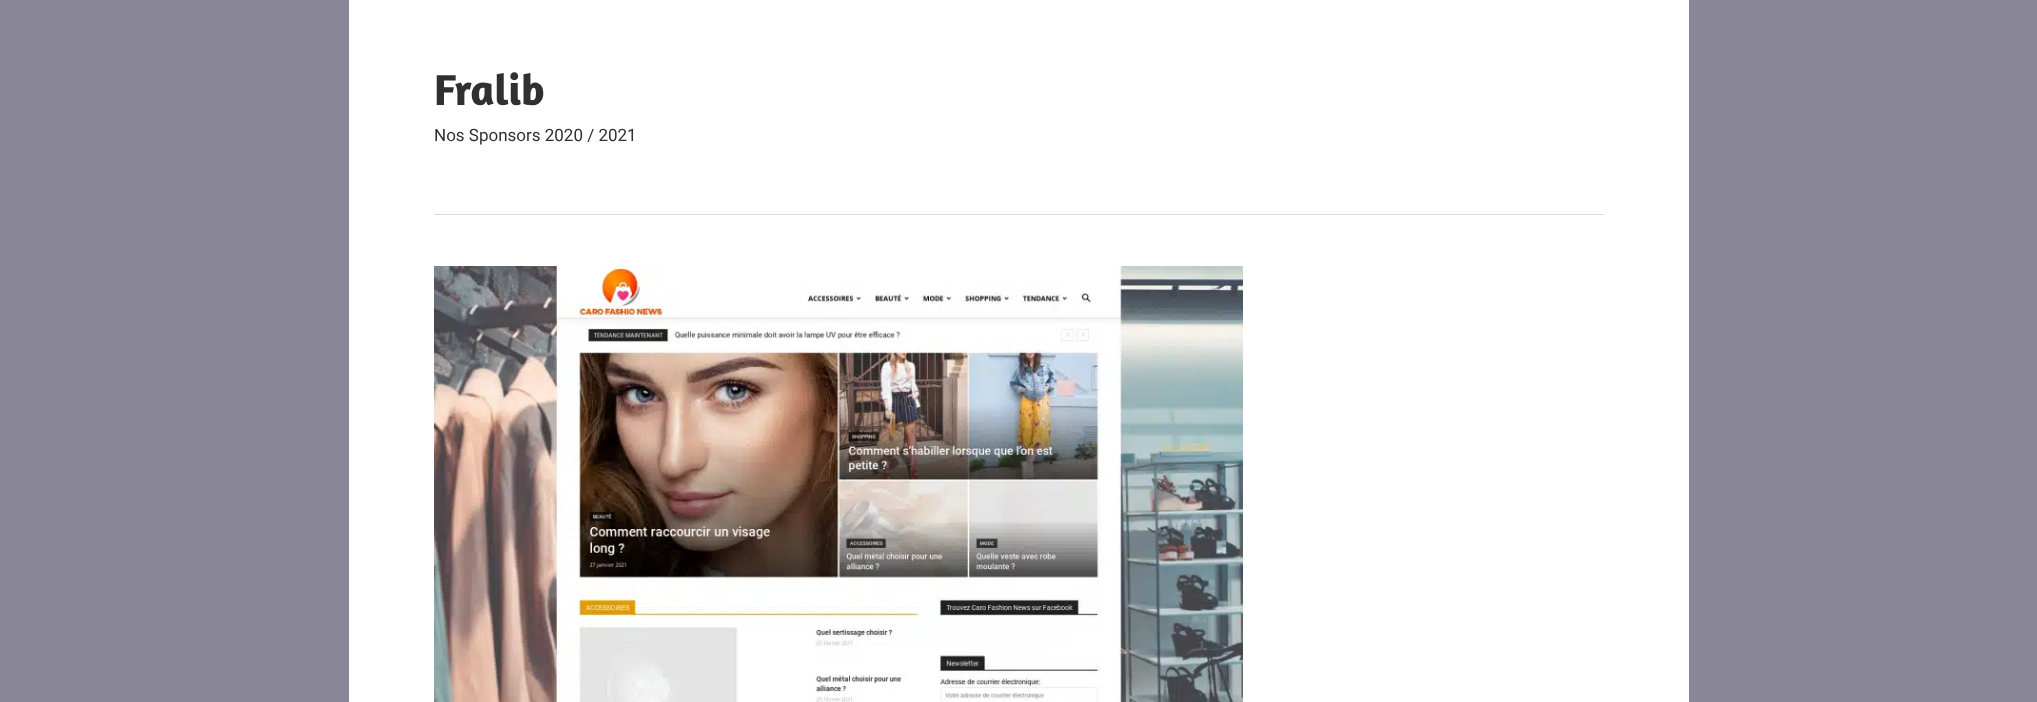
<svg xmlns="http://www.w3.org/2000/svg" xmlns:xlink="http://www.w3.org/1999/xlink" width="2037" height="702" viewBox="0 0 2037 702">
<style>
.cls-1{font:bold 44px Amaranth;fill:#303030}
.cls-2{font:17px Roboto;fill:#303030}
</style>
<rect width="100%" height="100%" fill="#898697"/>
<rect fill="#ffffff" x="349" y="0" width="1340" height="702"/>
<rect fill="#d9d9d9" x="434" y="214" width="1170" height="1"/>
<image xlink:href="image0.png" x="434" y="266" width="809" height="436"/>
<text class="cls-1" x="434" y="105">Fralib</text>
<text class="cls-2" x="434" y="141">Nos Sponsors 2020 / 2021</text>
</svg>
